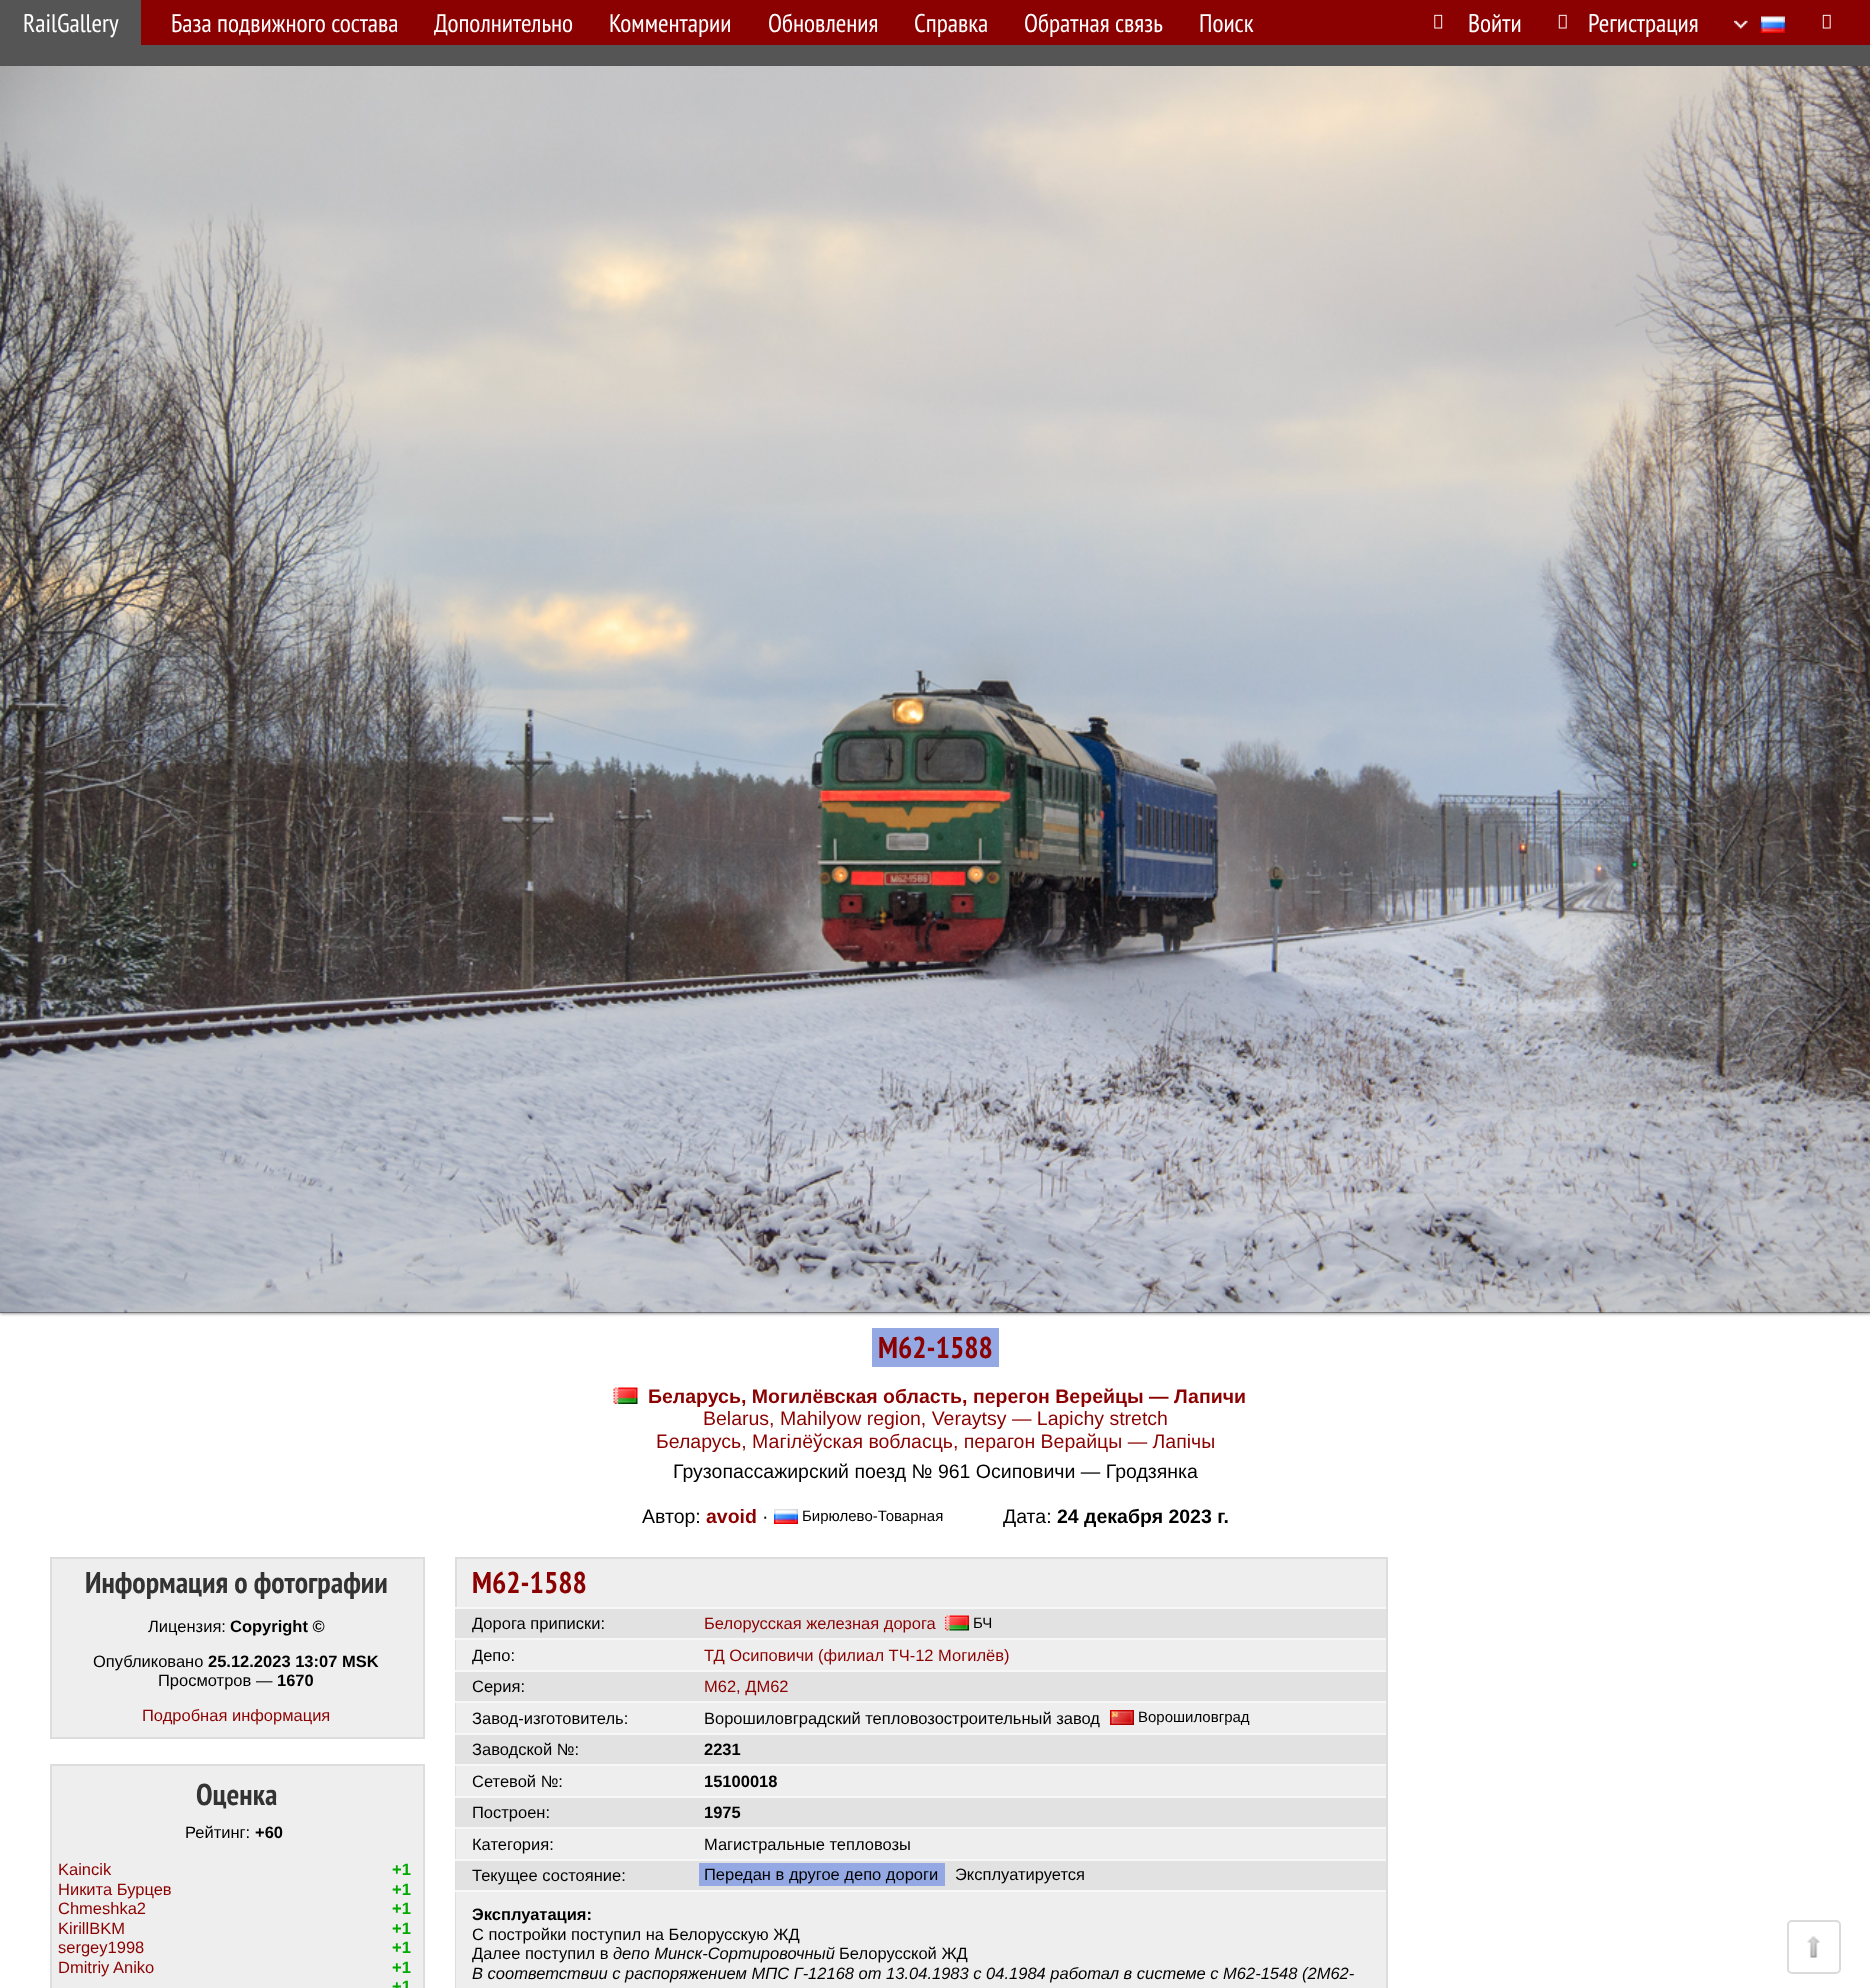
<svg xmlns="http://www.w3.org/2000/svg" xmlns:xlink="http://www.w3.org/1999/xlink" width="1870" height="1988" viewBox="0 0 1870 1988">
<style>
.cls-1{font:25.5px PT Sans Narrow;fill:#ffffff}
.cls-2{font:bold 30px PT Sans Narrow;fill:#8b0000}
.cls-3{font:bold 19.5px Liberation Sans;fill:#8b0000}
.cls-4{font:19.5px Liberation Sans;fill:#8b0000}
.cls-5{font:19.5px Liberation Sans;fill:#000000}
.cls-6{font:15px Liberation Sans;fill:#000000}
.cls-7{font:bold 19.5px Liberation Sans;fill:#000000}
.cls-8{font:bold 30px PT Sans Narrow;fill:#333333}
.cls-9{font:16.5px Liberation Sans;fill:#000000}
.cls-10{font:bold 16.5px Liberation Sans;fill:#000000}
.cls-11{font:16.5px Liberation Sans;fill:#8b0000}
.cls-12{font:bold 16.5px Liberation Sans;fill:#00aa00}
.cls-13{font:italic 16.5px Liberation Sans;fill:#000000}
</style>
<rect width="100%" height="100%" fill="#ffffff"/>
<rect fill="#8b0000" x="141" y="0" width="1729" height="45"/>
<rect fill="#555555" x="0" y="0" width="141" height="45"/>
<image xlink:href="image0.png" x="1434" y="14" width="9" height="15"/>
<image xlink:href="image1.png" x="1558" y="14" width="9" height="15"/>
<image xlink:href="image2.png" x="1734" y="20" width="14" height="9"/>
<image xlink:href="image3.png" x="1761" y="16" width="24" height="17"/>
<image xlink:href="image1.png" x="1822" y="14" width="9" height="15"/>
<rect fill="#555555" x="0" y="45" width="1870" height="21"/>
<rect fill="#000000" fill-opacity="0.4" filter="blur(1.5px)" x="0" y="68" width="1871" height="1246"/>
<rect fill="#333333" x="0" y="1312" width="1870" height="1"/>
<image xlink:href="image4.png" x="0" y="66" width="1870" height="1247"/>
<rect fill="#94a9e3" x="872" y="1328" width="127" height="39"/>
<image xlink:href="image5.png" x="613" y="1387" width="25" height="17"/>
<image xlink:href="image6.png" x="774" y="1509" width="24" height="15"/>
<rect fill="#eeeeee" stroke="#dddddd" stroke-width="2" x="51" y="1558" width="373" height="180"/>
<rect fill="#eeeeee" stroke="#dddddd" stroke-width="2" x="51" y="1765" width="373" height="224"/>
<rect fill="#eeeeee" x="457" y="1559" width="929" height="48"/>
<rect fill="none" stroke="#dddddd" stroke-width="2" x="456" y="1558" width="931" height="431"/>
<rect fill="#e2e2e2" x="456" y="1609" width="930" height="29"/>
<rect fill="#f7f7f7" x="455" y="1607" width="931" height="2"/>
<image xlink:href="image7.png" x="945" y="1615" width="24" height="16"/>
<rect fill="#eeeeee" x="456" y="1640" width="930" height="30"/>
<rect fill="#f7f7f7" x="455" y="1638" width="931" height="2"/>
<rect fill="#e2e2e2" x="456" y="1672" width="930" height="29"/>
<rect fill="#f7f7f7" x="455" y="1670" width="931" height="2"/>
<rect fill="#eeeeee" x="456" y="1703" width="930" height="30"/>
<rect fill="#f7f7f7" x="455" y="1701" width="931" height="2"/>
<image xlink:href="image8.png" x="1110" y="1710" width="24" height="15"/>
<rect fill="#e2e2e2" x="456" y="1735" width="930" height="29"/>
<rect fill="#f7f7f7" x="455" y="1733" width="931" height="2"/>
<rect fill="#eeeeee" x="456" y="1766" width="930" height="30"/>
<rect fill="#f7f7f7" x="455" y="1764" width="931" height="2"/>
<rect fill="#e2e2e2" x="456" y="1798" width="930" height="29"/>
<rect fill="#f7f7f7" x="455" y="1796" width="931" height="2"/>
<rect fill="#eeeeee" x="456" y="1829" width="930" height="30"/>
<rect fill="#f7f7f7" x="455" y="1827" width="931" height="2"/>
<rect fill="#e2e2e2" x="456" y="1861" width="930" height="29"/>
<rect fill="#f7f7f7" x="455" y="1859" width="931" height="2"/>
<rect fill="#94a9e3" x="699" y="1863" width="246" height="23"/>
<rect fill="#eeeeee" x="456" y="1892" width="930" height="96"/>
<rect fill="#f7f7f7" x="455" y="1890" width="931" height="2"/>
<image xlink:href="image9.png" x="1807" y="1936" width="13" height="22"/>
<rect fill="none" stroke="#dbdbdb" stroke-width="2" x="1788" y="1921" width="52" height="52" rx="4"/>
<text class="cls-1" x="23" y="32">RailGallery</text>
<text class="cls-1" x="171" y="32">База подвижного состава</text>
<text class="cls-1" x="434" y="32">Дополнительно</text>
<text class="cls-1" x="609" y="32">Комментарии</text>
<text class="cls-1" x="768" y="32">Обновления</text>
<text class="cls-1" x="914" y="32">Справка</text>
<text class="cls-1" x="1024" y="32">Обратная связь</text>
<text class="cls-1" x="1199" y="32">Поиск</text>
<text class="cls-1" x="1468" y="32">Войти</text>
<text class="cls-1" x="1588" y="32">Регистрация</text>
<text class="cls-2" x="878" y="1358">М62-1588</text>
<text class="cls-3" x="648" y="1403">Беларусь, Могилёвская область, перегон Верейцы — Лапичи</text>
<text class="cls-4" x="703" y="1425">Belarus, Mahilyow region, Veraytsy — Lapichy stretch</text>
<text class="cls-4" x="656" y="1448">Беларусь, Магілёўская вобласць, перагон Верайцы — Лапічы</text>
<text class="cls-5" x="673" y="1478">Грузопассажирский поезд № 961 Осиповичи — Гродзянка</text>
<text class="cls-5" x="642" y="1523">Автор:</text>
<text class="cls-3" x="706" y="1523">avoid</text>
<text class="cls-5" x="762" y="1523">·</text>
<text class="cls-6" x="802" y="1521">Бирюлево-Товарная</text>
<text class="cls-5" x="1003" y="1523">Дата:</text>
<text class="cls-7" x="1057" y="1523">24 декабря 2023 г.</text>
<text class="cls-8" x="85" y="1593">Информация о фотографии</text>
<text class="cls-9" x="148" y="1632">Лицензия:</text>
<text class="cls-10" x="230" y="1632">Copyright ©</text>
<text class="cls-9" x="93" y="1667">Опубликовано</text>
<text class="cls-10" x="208" y="1667">25.12.2023 13:07 MSK</text>
<text class="cls-9" x="158" y="1686">Просмотров —</text>
<text class="cls-10" x="277" y="1686">1670</text>
<text class="cls-11" x="142" y="1721">Подробная информация</text>
<text class="cls-8" x="196" y="1805">Оценка</text>
<text class="cls-9" x="185" y="1838">Рейтинг:</text>
<text class="cls-10" x="255" y="1838">+60</text>
<text class="cls-11" x="58" y="1875">Kaincik</text>
<text class="cls-12" x="392" y="1875">+1</text>
<text class="cls-11" x="58" y="1895">Никита Бурцев</text>
<text class="cls-12" x="392" y="1895">+1</text>
<text class="cls-11" x="58" y="1914">Chmeshka2</text>
<text class="cls-12" x="392" y="1914">+1</text>
<text class="cls-11" x="58" y="1934">KirillBKM</text>
<text class="cls-12" x="392" y="1934">+1</text>
<text class="cls-11" x="58" y="1953">sergey1998</text>
<text class="cls-12" x="392" y="1953">+1</text>
<text class="cls-11" x="58" y="1973">Dmitriy Aniko</text>
<text class="cls-12"><tspan x="392" y="1973">+1</tspan><tspan x="392" y="1992">+1</tspan></text>
<text class="cls-2" x="472" y="1593">М62-1588</text>
<text class="cls-9" x="472" y="1629">Дорога приписки:</text>
<text class="cls-11" x="704" y="1629">Белорусская железная дорога</text>
<text class="cls-6" x="973" y="1628">БЧ</text>
<text class="cls-9" x="472" y="1661">Депо:</text>
<text class="cls-11" x="704" y="1661">ТД Осиповичи (филиал ТЧ-12 Могилёв)</text>
<text class="cls-9" x="472" y="1692">Серия:</text>
<text class="cls-11" x="704" y="1692">М62, ДМ62</text>
<text class="cls-9" x="472" y="1724">Завод-изготовитель:</text>
<text class="cls-9" x="704" y="1724">Ворошиловградский тепловозостроительный завод</text>
<text class="cls-6" x="1138" y="1722">Ворошиловград</text>
<text class="cls-9" x="472" y="1755">Заводской №:</text>
<text class="cls-10" x="704" y="1755">2231</text>
<text class="cls-9" x="472" y="1787">Сетевой №:</text>
<text class="cls-10" x="704" y="1787">15100018</text>
<text class="cls-9" x="472" y="1818">Построен:</text>
<text class="cls-10" x="704" y="1818">1975</text>
<text class="cls-9" x="472" y="1850">Категория:</text>
<text class="cls-9" x="704" y="1850">Магистральные тепловозы</text>
<text class="cls-9" x="472" y="1881">Текущее состояние:</text>
<text class="cls-9" x="704" y="1880">Передан в другое депо дороги</text>
<text class="cls-9" x="955" y="1880">Эксплуатируется</text>
<text class="cls-10" x="472" y="1920">Эксплуатация:</text>
<text class="cls-9"><tspan x="472" y="1940">С постройки поступил на Белорусскую ЖД</tspan><tspan x="472" y="1959">Далее поступил в</tspan></text>
<text class="cls-13" x="613" y="1959">депо Минск-Сортировочный</text>
<text class="cls-9" x="839" y="1959">Белорусской ЖД</text>
<text class="cls-13" x="472" y="1979">В соответствии с распоряжением МПС Г-12168 от 13.04.1983 с 04.1984 работал в системе с М62-1548 (2М62-</text>
</svg>
